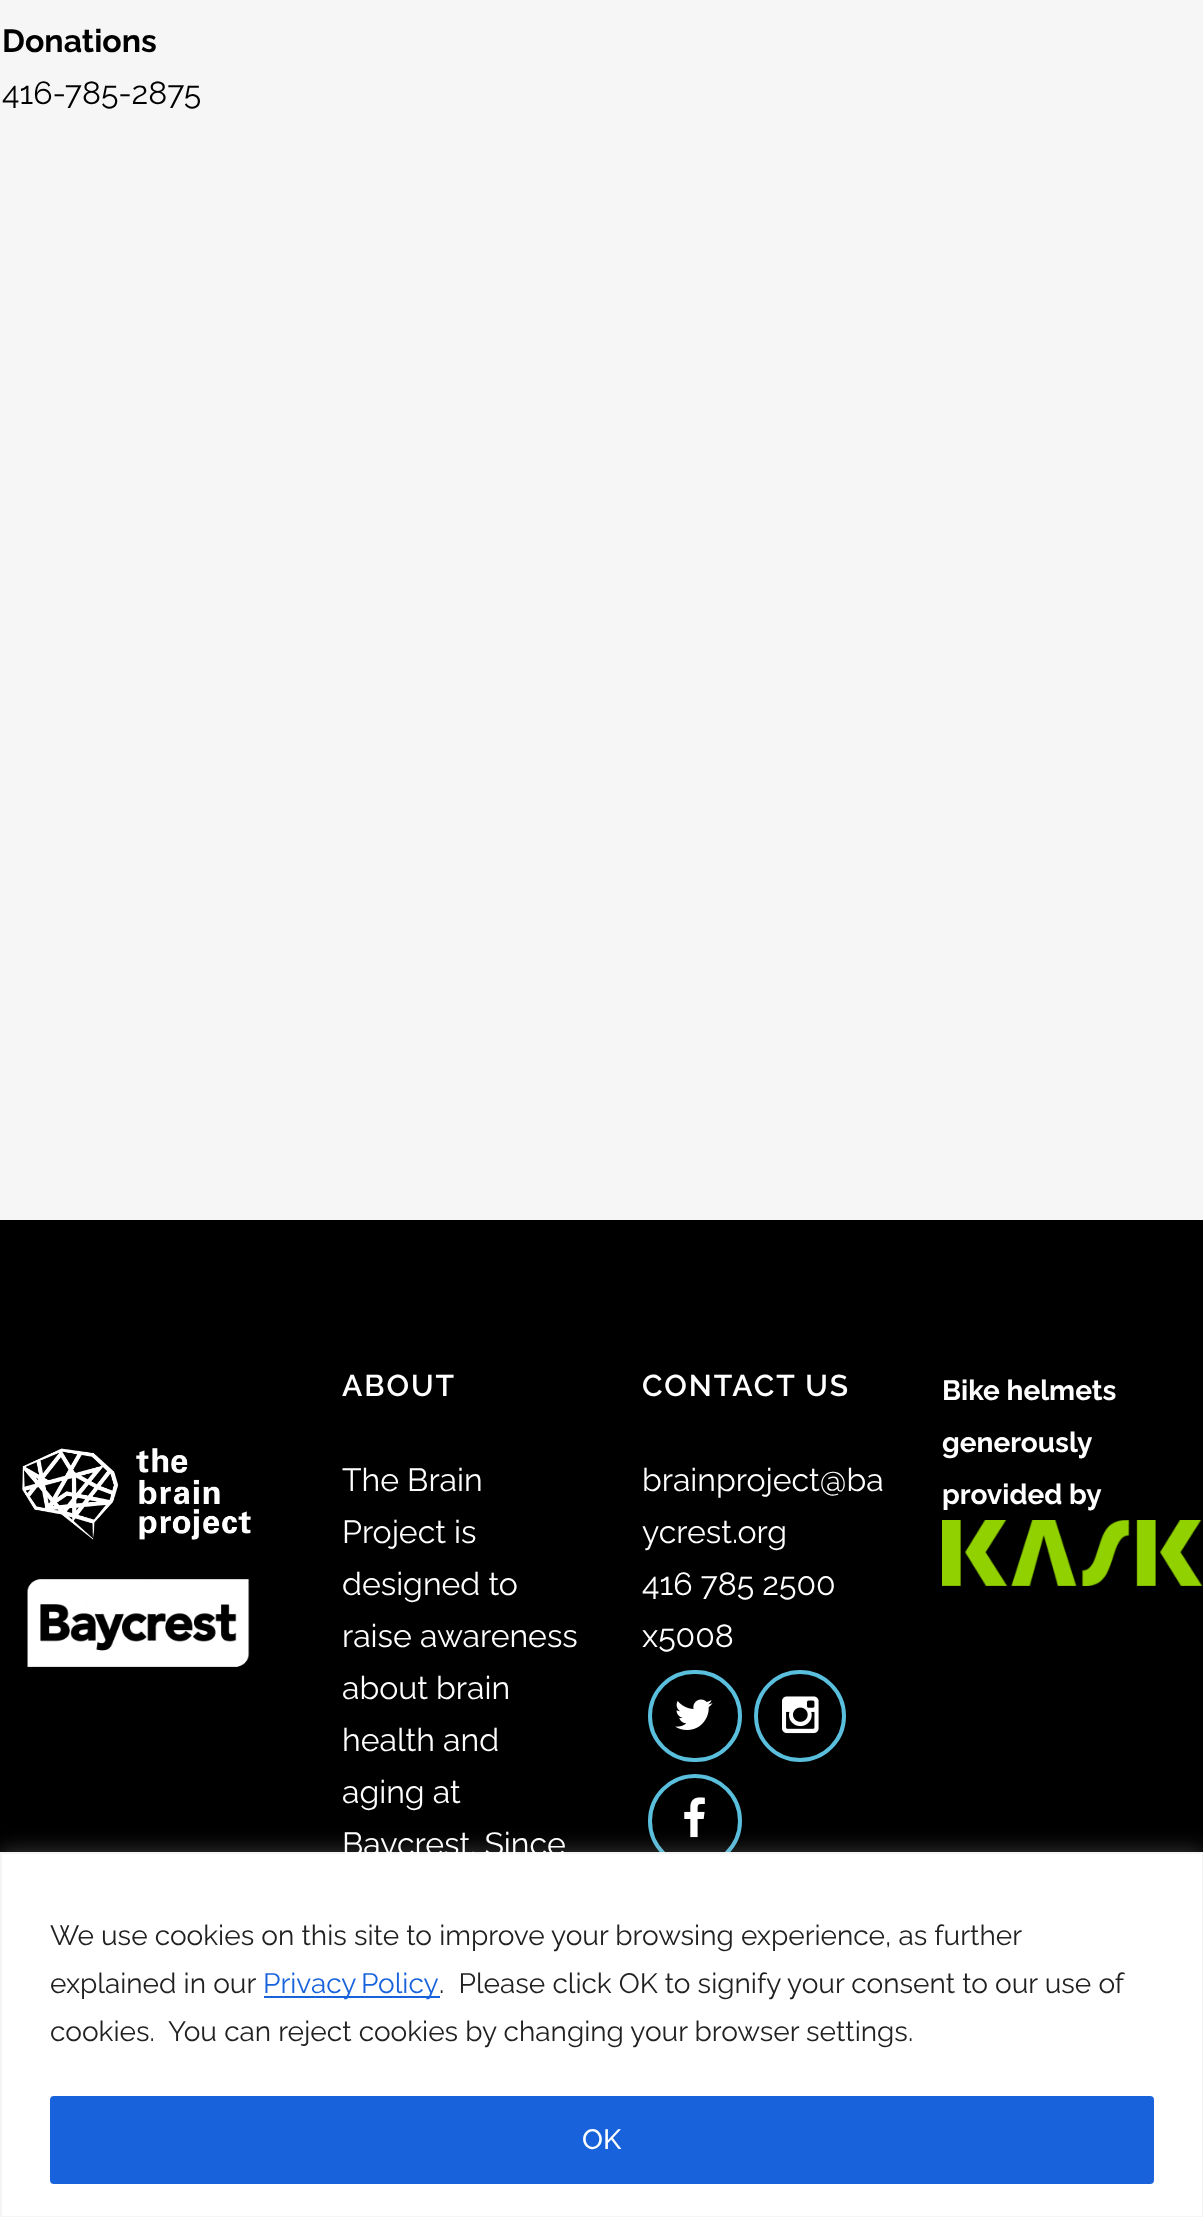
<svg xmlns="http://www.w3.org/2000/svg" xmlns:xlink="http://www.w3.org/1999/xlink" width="1203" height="2217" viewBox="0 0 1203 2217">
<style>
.cls-1{font:bold 32px Raleway;fill:#000000}
.cls-2{font:32px Raleway;fill:#000000}
.cls-3{font:600 30px Raleway;letter-spacing:2px;fill:#ffffff}
.cls-4{font:32px Raleway;fill:#ffffff}
.cls-5{font:bold 28px Raleway;fill:#ffffff}
.cls-6{font:28px Raleway;fill:#212121}
.cls-7{font:28px Raleway;fill:#1863dc}
.cls-8{font:500 28px Raleway;fill:#ffffff}
</style>
<rect width="100%" height="100%" fill="#f6f6f6"/>
<rect fill="#000000" x="0" y="1220" width="1203" height="632"/>
<image xlink:href="image0.png" x="22" y="1448" width="229" height="92"/>
<image xlink:href="image1.png" x="27" y="1579" width="223" height="88"/>
<rect fill="none" stroke="#5abedd" stroke-width="4" x="650" y="1672" width="90" height="88" rx="44"/>
<image xlink:href="image2.png" x="675" y="1699" width="38" height="31"/>
<circle fill="none" stroke="#5abedd" stroke-width="4" cx="800" cy="1716" r="44"/>
<image xlink:href="image3.png" x="782" y="1696" width="37" height="38"/>
<circle fill="none" stroke="#5abedd" stroke-width="4" cx="695" cy="1821" r="45"/>
<image xlink:href="image4.png" x="684" y="1797" width="21" height="41"/>
<image xlink:href="image5.png" x="942" y="1520" width="260" height="66"/>
<rect fill="#acabab" fill-opacity="0.3" filter="blur(10px)" x="0" y="1850" width="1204" height="366"/>
<rect fill="#ffffff" stroke="#f4f4f4" stroke-width="2" x="1" y="1853" width="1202" height="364"/>
<rect fill="#1863dc" x="264" y="1996" width="176" height="2"/>
<rect fill="#1863dc" stroke="#1863dc" stroke-width="4" x="52" y="2098" width="1100" height="84" rx="2"/>
<text class="cls-1" x="2" y="52">Donations</text>
<text class="cls-2" x="2" y="104">416-785-2875</text>
<text class="cls-3" x="342" y="1396">ABOUT</text>
<text class="cls-4"><tspan x="342" y="1491">The Brain</tspan><tspan x="342" y="1543">Project is</tspan><tspan x="342" y="1595">designed to</tspan><tspan x="342" y="1647">raise awareness</tspan><tspan x="342" y="1699">about brain</tspan><tspan x="342" y="1751">health and</tspan><tspan x="342" y="1803">aging at</tspan><tspan x="342" y="1855">Baycrest. Since</tspan></text>
<text class="cls-3" x="642" y="1396">CONTACT US</text>
<text class="cls-4"><tspan x="642" y="1491">brainproject@ba</tspan><tspan x="642" y="1543">ycrest.org</tspan><tspan x="642" y="1595">416 785 2500</tspan><tspan x="642" y="1647">x5008</tspan></text>
<text class="cls-5"><tspan x="942" y="1400">Bike helmets</tspan><tspan x="942" y="1452">generously</tspan><tspan x="942" y="1504">provided by</tspan></text>
<text class="cls-6"><tspan x="50" y="1945">We use cookies on this site to improve your browsing experience, as further</tspan><tspan x="50" y="1993">explained in our</tspan></text>
<text class="cls-7" x="263" y="1993" word-spacing="-2">Privacy Policy</text>
<text class="cls-6" xml:space="preserve" x="439" y="1993">.  Please click OK to signify your consent to our use of</text>
<text class="cls-6" xml:space="preserve" x="50" y="2041">cookies.  You can reject cookies by changing your browser settings.</text>
<text class="cls-8" x="582" y="2149">OK</text>
</svg>
